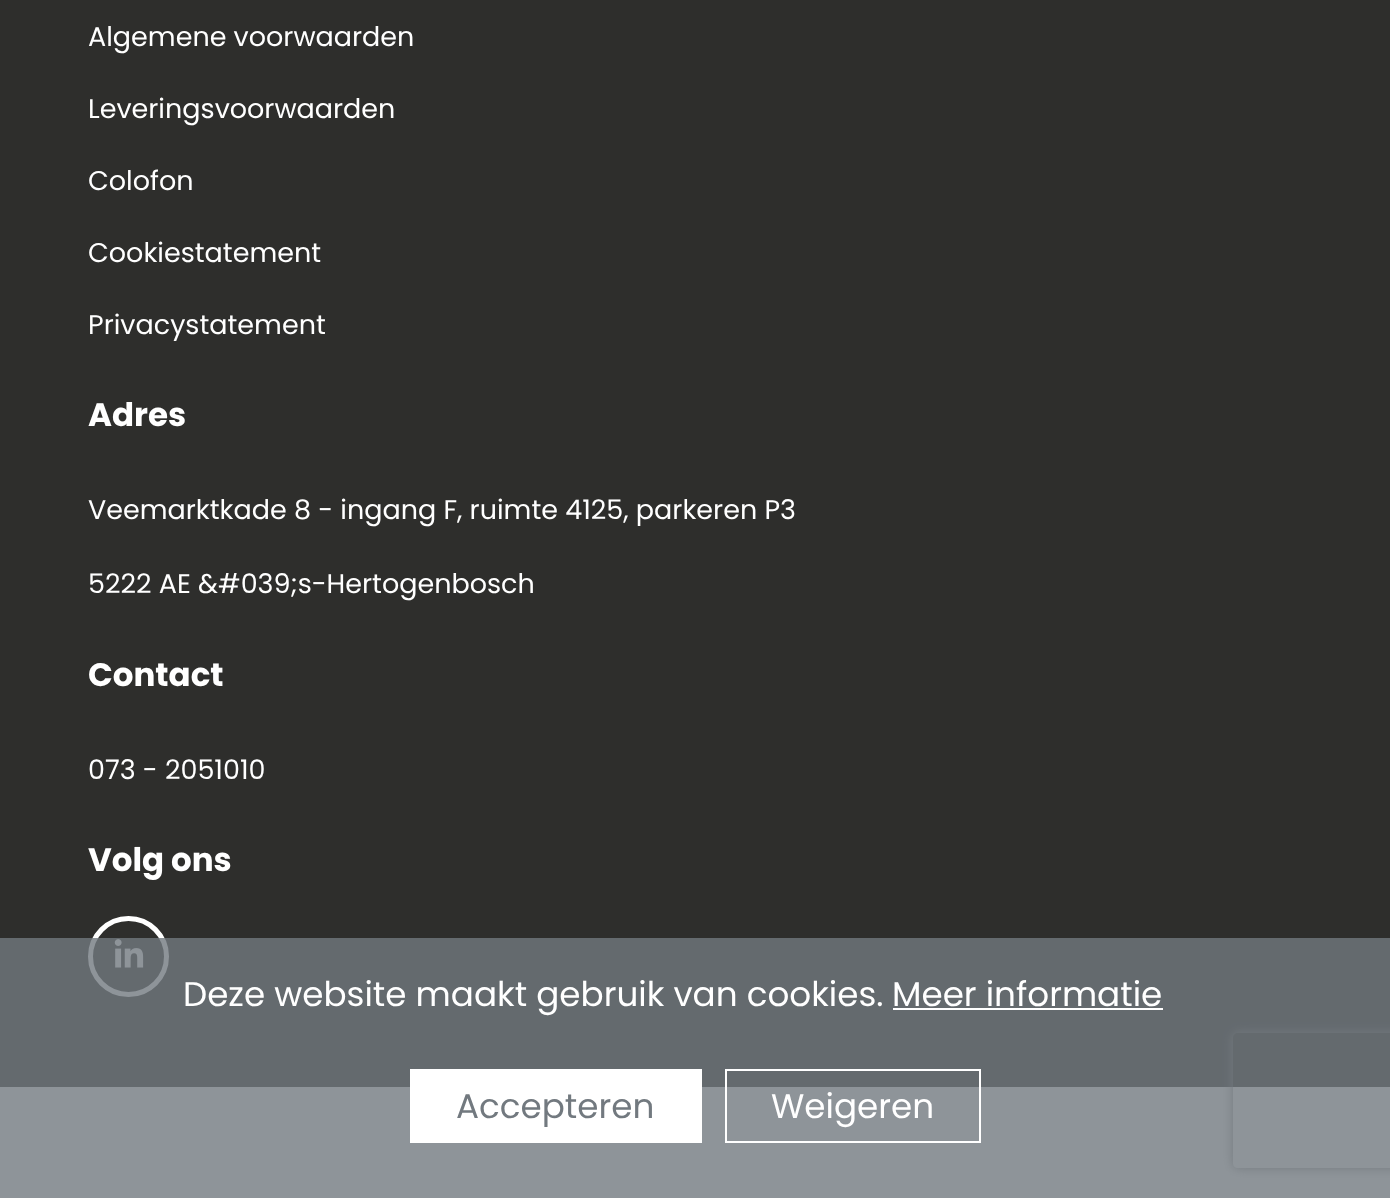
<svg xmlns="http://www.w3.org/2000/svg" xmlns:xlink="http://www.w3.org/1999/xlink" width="1390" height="1198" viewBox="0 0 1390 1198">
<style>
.cls-1{font:27px Poppins;fill:#ffffff}
.cls-2{font:bold 32.5px Poppins;fill:#ffffff}
.cls-3{font:34.2px Poppins;fill:#ffffff}
.cls-4{font:34.2px Poppins;fill:#72797f}
</style>
<defs>
<clipPath id="clip1"><path d="M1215 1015H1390V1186H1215ZM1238 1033H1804C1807 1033 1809 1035 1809 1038V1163C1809 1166 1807 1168 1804 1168H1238C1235 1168 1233 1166 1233 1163V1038C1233 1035 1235 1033 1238 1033Z" clip-rule="evenodd"/></clipPath>
</defs>
<rect width="100%" height="100%" fill="#ffffff"/>
<rect fill="#2e2e2c" x="0" y="0" width="1390" height="1087"/>
<circle fill="none" stroke="#ffffff" stroke-width="5" cx="128.5" cy="956.5" r="38"/>
<image xlink:href="image0.png" x="114" y="939" width="30" height="29"/>
<g clip-path="url(#clip1)">
<rect fill="#808080" filter="blur(5.5px)" x="1233" y="1033" width="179" height="135" rx="5"/>
</g>
<rect fill="#72797f" fill-opacity="0.8" x="0" y="938" width="1390" height="260"/>
<rect fill="#ffffff" x="893" y="1008" width="270" height="2"/>
<rect fill="#ffffff" x="410" y="1069" width="292" height="74"/>
<rect fill="none" stroke="#ffffff" stroke-width="2" x="726" y="1070" width="254" height="72"/>
<text class="cls-1" x="88" y="46">Algemene voorwaarden</text>
<text class="cls-1" x="88" y="118">Leveringsvoorwaarden</text>
<text class="cls-1" x="88" y="190">Colofon</text>
<text class="cls-1" x="88" y="262">Cookiestatement</text>
<text class="cls-1" x="88" y="334">Privacystatement</text>
<text class="cls-2" x="88" y="426">Adres</text>
<text class="cls-1" x="88" y="519">Veemarktkade 8 - ingang F, ruimte 4125, parkeren P3</text>
<text class="cls-1" x="88" y="593">5222 AE &amp;#039;s-Hertogenbosch</text>
<text class="cls-2" x="88" y="686">Contact</text>
<text class="cls-1" x="88" y="779">073 - 2051010</text>
<text class="cls-2" x="88" y="871">Volg ons</text>
<text class="cls-3" x="183" y="1006">Deze website maakt gebruik van cookies.</text>
<text class="cls-3" x="892" y="1006">Meer informatie</text>
<text class="cls-4" x="456" y="1118">Accepteren</text>
<text class="cls-3" x="771" y="1118">Weigeren</text>
</svg>
